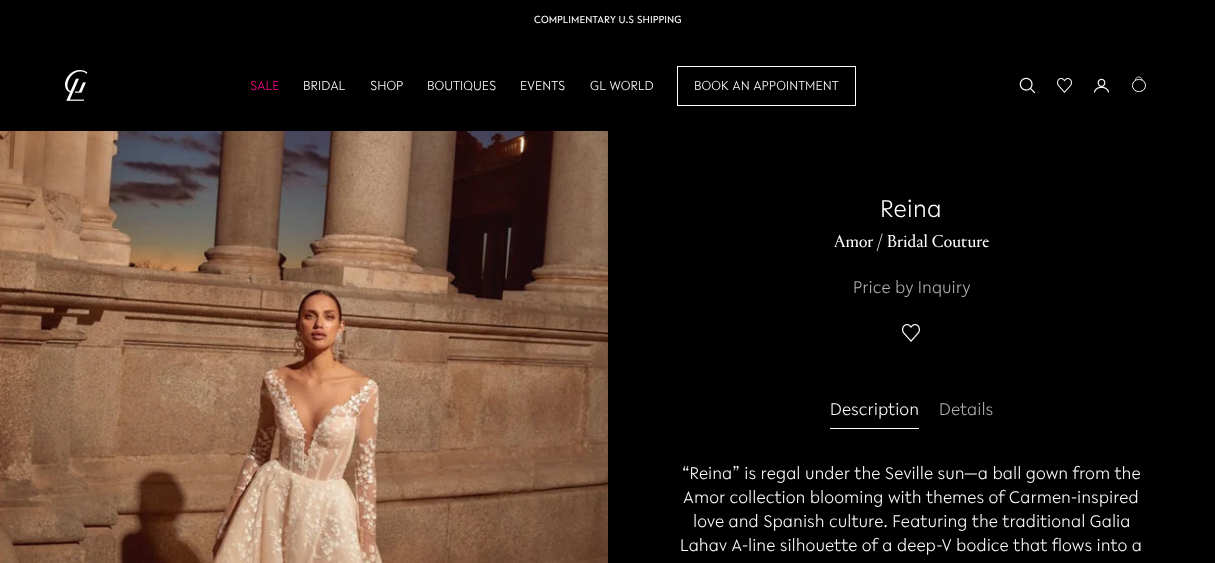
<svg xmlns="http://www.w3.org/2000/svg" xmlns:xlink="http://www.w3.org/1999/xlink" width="1215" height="563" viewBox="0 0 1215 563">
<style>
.cls-1{font:11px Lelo;fill:#ffffff}
.cls-2{font:300 14px Lelo;fill:#ff008c}
.cls-3{font:300 14px Lelo;fill:#ffffff}
.cls-4{font:300 26px Lelo;fill:#ffffff}
.cls-5{font:18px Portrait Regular;fill:#ffffff}
.cls-6{font:300 18px Lelo;fill:#b3b3b3}
.cls-7{font:300 18px Lelo;fill:#ffffff}
</style>
<rect width="100%" height="100%" fill="#000000"/>
<image xlink:href="image0.png" x="65" y="70" width="23" height="31"/>
<rect fill="none" stroke="#ffffff" x="677.5" y="66.5" width="178" height="39"/>
<image xlink:href="image1.png" x="1019" y="77" width="17" height="17"/>
<image xlink:href="image2.png" x="1057" y="78" width="15" height="15"/>
<image xlink:href="image3.png" x="1093" y="78" width="17" height="15"/>
<path fill="none" stroke="#ffffff" stroke-width="0.8" d="M1142 80C1142 76 1135.5 76 1135.5 80"/>
<rect fill="none" stroke="#ffffff" x="1132.5" y="79.5" width="13" height="12" rx="6"/>
<image xlink:href="image4.png" x="0" y="131" width="608" height="432"/>
<image xlink:href="image5.png" x="902" y="324" width="18" height="18"/>
<rect fill="#ffffff" x="830" y="428" width="89" height="1"/>
<text class="cls-1" x="534" y="23">COMPLIMENTARY U.S SHIPPING</text>
<text class="cls-2" x="250" y="90">SALE</text>
<text class="cls-3" x="303" y="90">BRIDAL</text>
<text class="cls-3" x="370" y="90">SHOP</text>
<text class="cls-3" x="427" y="90">BOUTIQUES</text>
<text class="cls-3" x="520" y="90">EVENTS</text>
<text class="cls-3" x="590" y="90">GL WORLD</text>
<text class="cls-3" x="694" y="90">BOOK AN APPOINTMENT</text>
<text class="cls-4" x="880" y="217">Reina</text>
<text class="cls-5" x="834" y="247">Amor</text>
<text class="cls-5" x="877" y="247">/ Bridal Couture</text>
<text class="cls-6" x="853" y="293">Price by Inquiry</text>
<text class="cls-7" x="830" y="415">Description</text>
<text class="cls-6" x="939" y="415">Details</text>
<text class="cls-7" x="682" y="479">“Reina” is regal under the Seville sun—a ball gown from the</text>
<text class="cls-7" x="683" y="503">Amor collection blooming with themes of Carmen-inspired</text>
<text class="cls-7" x="693" y="527">love and Spanish culture. Featuring the traditional Galia</text>
<text class="cls-7" x="680" y="551">Lahav A-line silhouette of a deep-V bodice that flows into a</text>
</svg>
